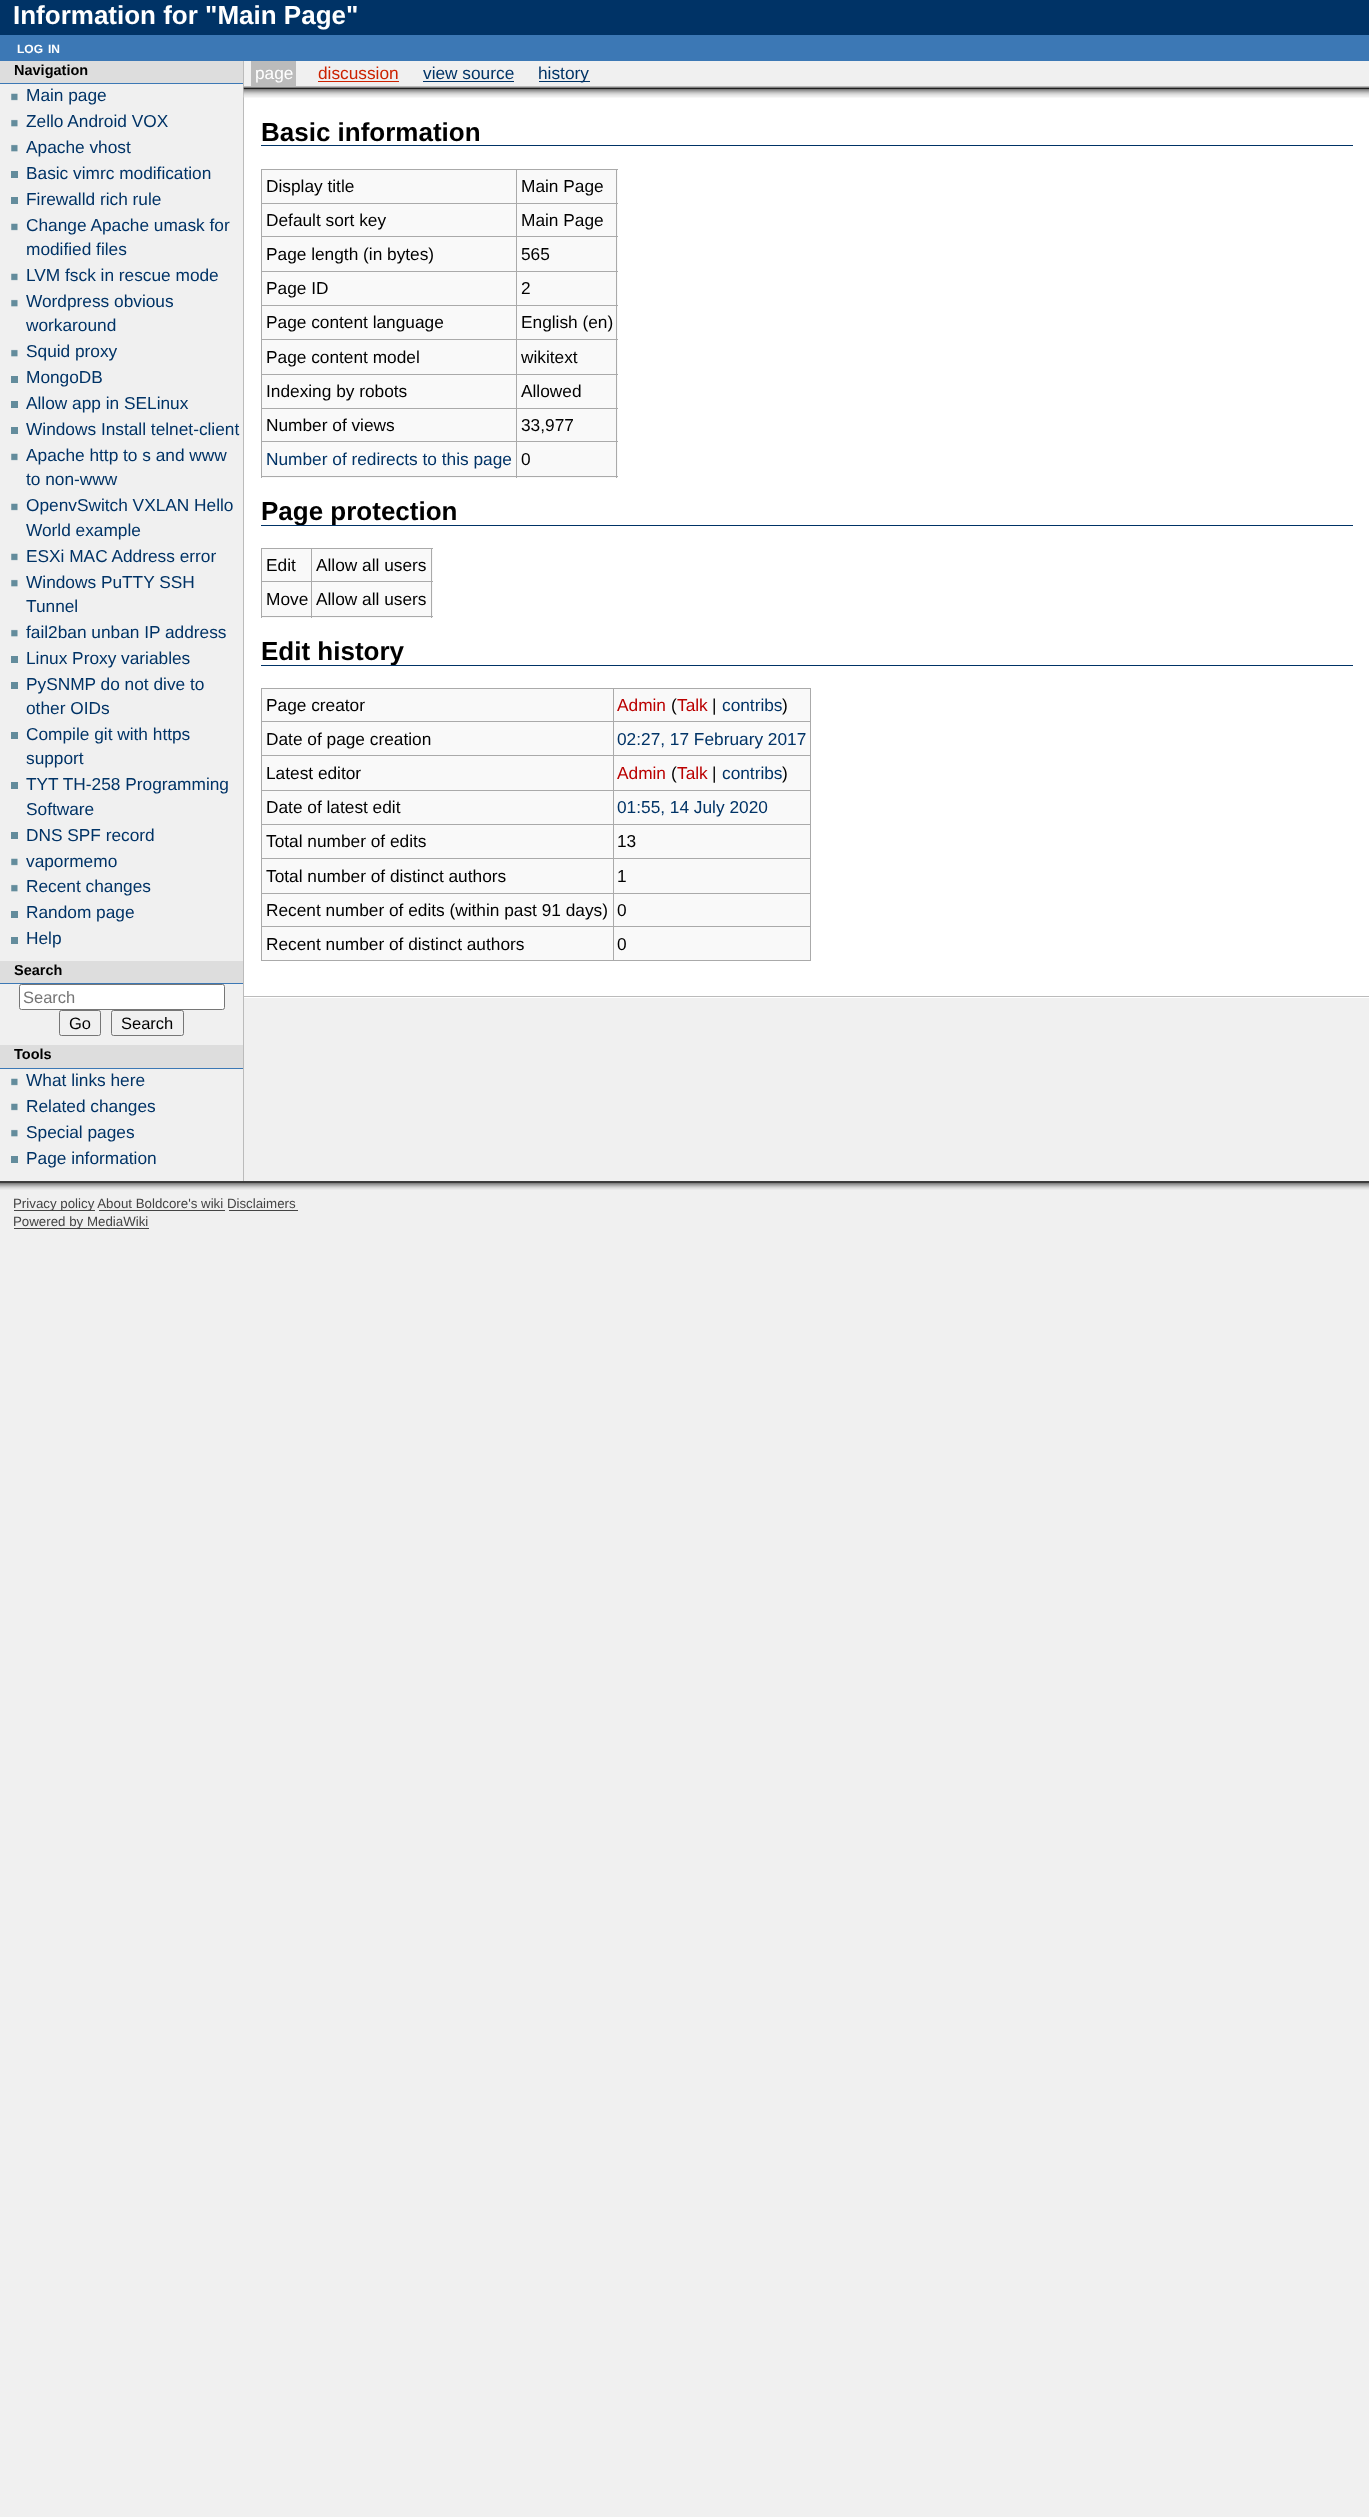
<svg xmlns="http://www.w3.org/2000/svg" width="1369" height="2517">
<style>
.a{font:bold 26px Liberation Sans;fill:#fff}
.b{font:bold 12px Liberation Sans;fill:#fff}
.c{font:bold 14.5px Liberation Sans;fill:#000}
.d{font:17.3px Liberation Sans;fill:#036}
.e{font:16.5px Liberation Sans;fill:#757575}
.f{font:16.5px Liberation Sans;fill:#000}
.g{font:17.3px Liberation Sans;fill:#fff}
.h{font:17.3px Liberation Sans;fill:#c20}
.i{font:bold 26px Liberation Sans;fill:#000}
.j{font:17.3px Liberation Sans;fill:#000}
.k{font:17.3px Liberation Sans;fill:#ba0000}
.l{font:13.3px Liberation Sans;fill:#444}
</style>
<defs>
<clipPath id="clip1"><path d="M261 499h1092v26H261z"/></clipPath>
<clipPath id="clip2"><path d="M261 639h1092v26H261z"/></clipPath>
</defs>
<rect width="100%" height="100%" fill="#f0f0f0"/>
<path fill="#036" d="M0 0h1369v35H0z"/>
<path fill="#3c78b5" d="M0 35h1369v26H0z"/>
<path fill="#bbb" d="M243 61h1v1120H243z"/>
<path fill="#ddd" d="M0 61h243v22H0z"/>
<path fill="#3c78b5" d="M0 83h243v1H0z"/>
<image href="1.png" x="11" y="93" width="7" height="8"/>
<image href="2.png" x="11" y="119" width="7" height="8"/>
<image href="2.png" x="11" y="144" width="7" height="8"/>
<path fill="#638c9c" d="M11 171h7v7H11z"/>
<path fill="#638c9c" d="M11 197h7v7H11z"/>
<image href="1.png" x="11" y="223" width="7" height="8"/>
<image href="1.png" x="11" y="273" width="7" height="8"/>
<image href="2.png" x="11" y="299" width="7" height="8"/>
<image href="2.png" x="11" y="349" width="7" height="8"/>
<path fill="#638c9c" d="M11 376h7v7H11z"/>
<path fill="#638c9c" d="M11 401h7v7H11z"/>
<path fill="#638c9c" d="M11 427h7v7H11z"/>
<image href="1.png" x="11" y="453" width="7" height="8"/>
<image href="1.png" x="11" y="503" width="7" height="8"/>
<image href="1.png" x="11" y="553" width="7" height="8"/>
<image href="2.png" x="11" y="579" width="7" height="8"/>
<image href="2.png" x="11" y="629" width="7" height="8"/>
<path fill="#638c9c" d="M11 656h7v7H11z"/>
<path fill="#638c9c" d="M11 682h7v7H11z"/>
<path fill="#638c9c" d="M11 732h7v7H11z"/>
<path fill="#638c9c" d="M11 782h7v7H11z"/>
<path fill="#638c9c" d="M11 832h7v7H11z"/>
<image href="1.png" x="11" y="858" width="7" height="8"/>
<image href="2.png" x="11" y="884" width="7" height="8"/>
<path fill="#638c9c" d="M11 911h7v7H11z"/>
<path fill="#638c9c" d="M11 937h7v7H11z"/>
<path fill="#ddd" d="M0 961h243v22H0z"/>
<path fill="#3c78b5" d="M0 983h243v1H0z"/>
<rect fill="#fff" stroke="#767676" x="19.5" y="984.5" width="205" height="25" rx="2"/>
<rect fill="none" stroke="#767676" x="59.5" y="1010.5" width="41" height="25" rx="2"/>
<rect fill="none" stroke="#767676" x="111.5" y="1010.5" width="72" height="25" rx="2"/>
<path fill="#ddd" d="M0 1045h243v23H0z"/>
<path fill="#3c78b5" d="M0 1068h243v1H0z"/>
<image href="1.png" x="11" y="1078" width="7" height="8"/>
<image href="1.png" x="11" y="1103" width="7" height="8"/>
<image href="2.png" x="11" y="1129" width="7" height="8"/>
<path fill="#638c9c" d="M11 1156h7v7H11z"/>
<path fill="#bbb" d="M251 61h45v25H251z"/>
<path fill="#c20" d="M318 81h81v1H318z"/>
<path fill="#036" d="M423 81h91v1H423z"/>
<path fill="#036" d="M539 81h51v1H539z"/>
<path fill="#fff" d="M244 87h1125v911H244z"/>
<path fill="#bbb" d="M243 86h1126v1H243z"/>
<path fill="#bbb" d="M243 996h1126v1H243z"/>
<image href="3.png" x="243" y="87" width="1126" height="11"/>
<path fill="#036" d="M261 145h1092v1H261z"/>
<path fill="#f9f9f9" d="M262 170h356v308H262z"/>
<path fill="#aaa" d="M261 169h357v1H261z"/>
<path fill="#aaa" d="M616 169h1v309H616z"/>
<path fill="#aaa" d="M261 476h357v1H261z"/>
<path fill="#aaa" d="M261 169h1v309H261z"/>
<path fill="#aaa" d="M516 203h102v1H516z"/>
<path fill="#aaa" d="M516 236h102v1H516z"/>
<path fill="#aaa" d="M516 271h102v1H516z"/>
<path fill="#aaa" d="M516 305h102v1H516z"/>
<path fill="#aaa" d="M516 339h102v1H516z"/>
<path fill="#aaa" d="M516 374h102v1H516z"/>
<path fill="#aaa" d="M516 408h102v1H516z"/>
<path fill="#aaa" d="M516 441h102v1H516z"/>
<path fill="#aaa" d="M516 441h1v37H516z"/>
<path fill="#aaa" d="M261 441h257v1H261z"/>
<path fill="#aaa" d="M516 408h1v35H516z"/>
<path fill="#aaa" d="M261 408h257v1H261z"/>
<path fill="#aaa" d="M516 374h1v35H516z"/>
<path fill="#aaa" d="M261 374h257v1H261z"/>
<path fill="#aaa" d="M516 339h1v36H516z"/>
<path fill="#aaa" d="M261 339h257v1H261z"/>
<path fill="#aaa" d="M516 305h1v35H516z"/>
<path fill="#aaa" d="M261 305h257v1H261z"/>
<path fill="#aaa" d="M516 271h1v35H516z"/>
<path fill="#aaa" d="M261 271h257v1H261z"/>
<path fill="#aaa" d="M516 236h1v37H516z"/>
<path fill="#aaa" d="M261 236h257v1H261z"/>
<path fill="#aaa" d="M516 203h1v35H516z"/>
<path fill="#aaa" d="M261 203h257v1H261z"/>
<path fill="#aaa" d="M516 169h1v35H516z"/>
<path fill="#036" d="M261 525h1092v1H261z"/>
<path fill="#f9f9f9" d="M262 549h171v69H262z"/>
<path fill="#aaa" d="M261 548h172v1H261z"/>
<path fill="#aaa" d="M431 548h1v70H431z"/>
<path fill="#aaa" d="M261 616h172v1H261z"/>
<path fill="#aaa" d="M261 548h1v70H261z"/>
<path fill="#aaa" d="M311 581h122v1H311z"/>
<path fill="#aaa" d="M311 581h1v37H311z"/>
<path fill="#aaa" d="M261 581h52v1H261z"/>
<path fill="#aaa" d="M311 548h1v35H311z"/>
<path fill="#036" d="M261 665h1092v1H261z"/>
<path fill="#f9f9f9" d="M262 689h548v271H262z"/>
<path fill="#aaa" d="M261 688h550v1H261z"/>
<path fill="#aaa" d="M810 688h1v273H810z"/>
<path fill="#aaa" d="M261 960h550v1H261z"/>
<path fill="#aaa" d="M261 688h1v273H261z"/>
<path fill="#aaa" d="M613 721h198v1H613z"/>
<path fill="#aaa" d="M613 755h198v1H613z"/>
<path fill="#aaa" d="M613 790h198v1H613z"/>
<path fill="#aaa" d="M613 824h198v1H613z"/>
<path fill="#aaa" d="M613 858h198v1H613z"/>
<path fill="#aaa" d="M613 893h198v1H613z"/>
<path fill="#aaa" d="M613 926h198v1H613z"/>
<path fill="#aaa" d="M613 926h1v35H613z"/>
<path fill="#aaa" d="M261 926h353v1H261z"/>
<path fill="#aaa" d="M613 893h1v35H613z"/>
<path fill="#aaa" d="M261 893h353v1H261z"/>
<path fill="#aaa" d="M613 858h1v36H613z"/>
<path fill="#aaa" d="M261 858h353v1H261z"/>
<path fill="#aaa" d="M613 824h1v35H613z"/>
<path fill="#aaa" d="M261 824h353v1H261z"/>
<path fill="#aaa" d="M613 790h1v35H613z"/>
<path fill="#aaa" d="M261 790h353v1H261z"/>
<path fill="#aaa" d="M613 755h1v36H613z"/>
<path fill="#aaa" d="M261 755h353v1H261z"/>
<path fill="#aaa" d="M613 721h1v35H613z"/>
<path fill="#aaa" d="M261 721h353v1H261z"/>
<path fill="#aaa" d="M613 688h1v35H613z"/>
<image href="4.png" x="0" y="1181" width="1369" height="9"/>
<path fill="#444" d="M14 1210h81v1H14z"/>
<path fill="#444" d="M99 1210h126v1H99z"/>
<path fill="#444" d="M229 1210h69v1H229z"/>
<path fill="#444" d="M14 1228h135v1H14z"/>
<text class="a" x="13" y="24">Information for "Main Page"</text>
<text class="b" x="17" y="53">LOG</text>
<text class="b" x="48" y="53">IN</text>
<text class="c" x="14" y="75">Navigation</text>
<text class="d" x="26" y="101">Main page</text>
<text class="d" x="26" y="127">Zello Android VOX</text>
<text class="d" x="26" y="153">Apache vhost</text>
<text class="d" x="26" y="179">Basic vimrc modification</text>
<text class="d" x="26" y="205">Firewalld rich rule</text>
<text class="d" x="26" y="231">Change Apache umask for</text>
<text class="d" x="26" y="255">modified files</text>
<text class="d" x="26" y="281">LVM fsck in rescue mode</text>
<text class="d" x="26" y="307">Wordpress obvious</text>
<text class="d" x="26" y="331">workaround</text>
<text class="d" x="26" y="357">Squid proxy</text>
<text class="d" x="26" y="383">MongoDB</text>
<text class="d" x="26" y="409">Allow app in SELinux</text>
<text class="d" x="26" y="435">Windows Install telnet-client</text>
<text class="d" x="26" y="461">Apache http to s and www</text>
<text class="d" x="26" y="485">to non-www</text>
<text class="d" x="26" y="511">OpenvSwitch VXLAN Hello</text>
<text class="d" x="26" y="536">World example</text>
<text class="d" x="26" y="562">ESXi MAC Address error</text>
<text class="d" x="26" y="588">Windows PuTTY SSH</text>
<text class="d" x="26" y="612">Tunnel</text>
<text class="d" x="26" y="638">fail2ban unban IP address</text>
<text class="d" x="26" y="664">Linux Proxy variables</text>
<text class="d" x="26" y="690">PySNMP do not dive to</text>
<text class="d" x="26" y="714">other OIDs</text>
<text class="d" x="26" y="740">Compile git with https</text>
<text class="d" x="26" y="764">support</text>
<text class="d" x="26" y="790">TYT TH-258 Programming</text>
<text class="d" x="26" y="815">Software</text>
<text class="d" x="26" y="841">DNS SPF record</text>
<text class="d" x="26" y="867">vapormemo</text>
<text class="d" x="26" y="892">Recent changes</text>
<text class="d" x="26" y="918">Random page</text>
<text class="d" x="26" y="944">Help</text>
<text class="c" x="14" y="975">Search</text>
<text class="e" x="23" y="1003">Search</text>
<text class="f" x="69" y="1029">Go</text>
<text class="f" x="121" y="1029">Search</text>
<text class="c" x="14" y="1059">Tools</text>
<text class="d" x="26" y="1086">What links here</text>
<text class="d" x="26" y="1112">Related changes</text>
<text class="d" x="26" y="1138">Special pages</text>
<text class="d" x="26" y="1164">Page information</text>
<text class="g" x="255" y="79">page</text>
<text class="h" x="318" y="79">discussion</text>
<text class="d" x="423" y="79">view source</text>
<text class="d" x="538" y="79">history</text>
<text class="i" x="261" y="141">Basic information</text>
<text class="j" x="266" y="192">Display title</text>
<text class="j" x="521" y="192">Main Page</text>
<text class="j" x="266" y="226">Default sort key</text>
<text class="j" x="521" y="226">Main Page</text>
<text class="j" x="266" y="260">Page length (in bytes)</text>
<text class="j" x="521" y="260">565</text>
<text class="j" x="266" y="294">Page ID</text>
<text class="j" x="521" y="294">2</text>
<text class="j" x="266" y="328">Page content language</text>
<text class="j" x="521" y="328">English (en)</text>
<text class="j" x="266" y="363">Page content model</text>
<text class="j" x="521" y="363">wikitext</text>
<text class="j" x="266" y="397">Indexing by robots</text>
<text class="j" x="521" y="397">Allowed</text>
<text class="j" x="266" y="431">Number of views</text>
<text class="j" x="521" y="431">33,977</text>
<text class="d" x="266" y="465">Number of redirects to this page</text>
<text class="j" x="521" y="465">0</text>
<g clip-path="url(#clip1)">
<text class="i" x="261" y="520">Page protection</text>
</g>
<text class="j" x="266" y="571">Edit</text>
<text class="j" x="316" y="571">Allow all users</text>
<text class="j" x="266" y="605">Move</text>
<text class="j" x="316" y="605">Allow all users</text>
<g clip-path="url(#clip2)">
<text class="i" x="261" y="660">Edit history</text>
</g>
<text class="j" x="266" y="711">Page creator</text>
<text class="k" x="617" y="711">Admin</text>
<text class="j" x="671" y="711">(</text>
<text class="k" x="677" y="711">Talk</text>
<text class="j" x="712" y="711">|</text>
<text class="d" x="722" y="711">contribs</text>
<text class="j" x="782" y="711">)</text>
<text class="j" x="266" y="745">Date of page creation</text>
<text class="d" x="617" y="745">02:27, 17 February 2017</text>
<text class="j" x="266" y="779">Latest editor</text>
<text class="k" x="617" y="779">Admin</text>
<text class="j" x="671" y="779">(</text>
<text class="k" x="677" y="779">Talk</text>
<text class="j" x="712" y="779">|</text>
<text class="d" x="722" y="779">contribs</text>
<text class="j" x="782" y="779">)</text>
<text class="j" x="266" y="813">Date of latest edit</text>
<text class="d" x="617" y="813">01:55, 14 July 2020</text>
<text class="j" x="266" y="847">Total number of edits</text>
<text class="j" x="617" y="847">13</text>
<text class="j" x="266" y="882">Total number of distinct authors</text>
<text class="j" x="617" y="882">1</text>
<text class="j" x="266" y="916">Recent number of edits (within past 91 days)</text>
<text class="j" x="617" y="916">0</text>
<text class="j" x="266" y="950">Recent number of distinct authors</text>
<text class="j" x="617" y="950">0</text>
<text class="l" x="13" y="1208">Privacy policy About Boldcore's wiki Disclaimers</text>
<text class="l" x="13" y="1226">Powered by MediaWiki</text>
</svg>
